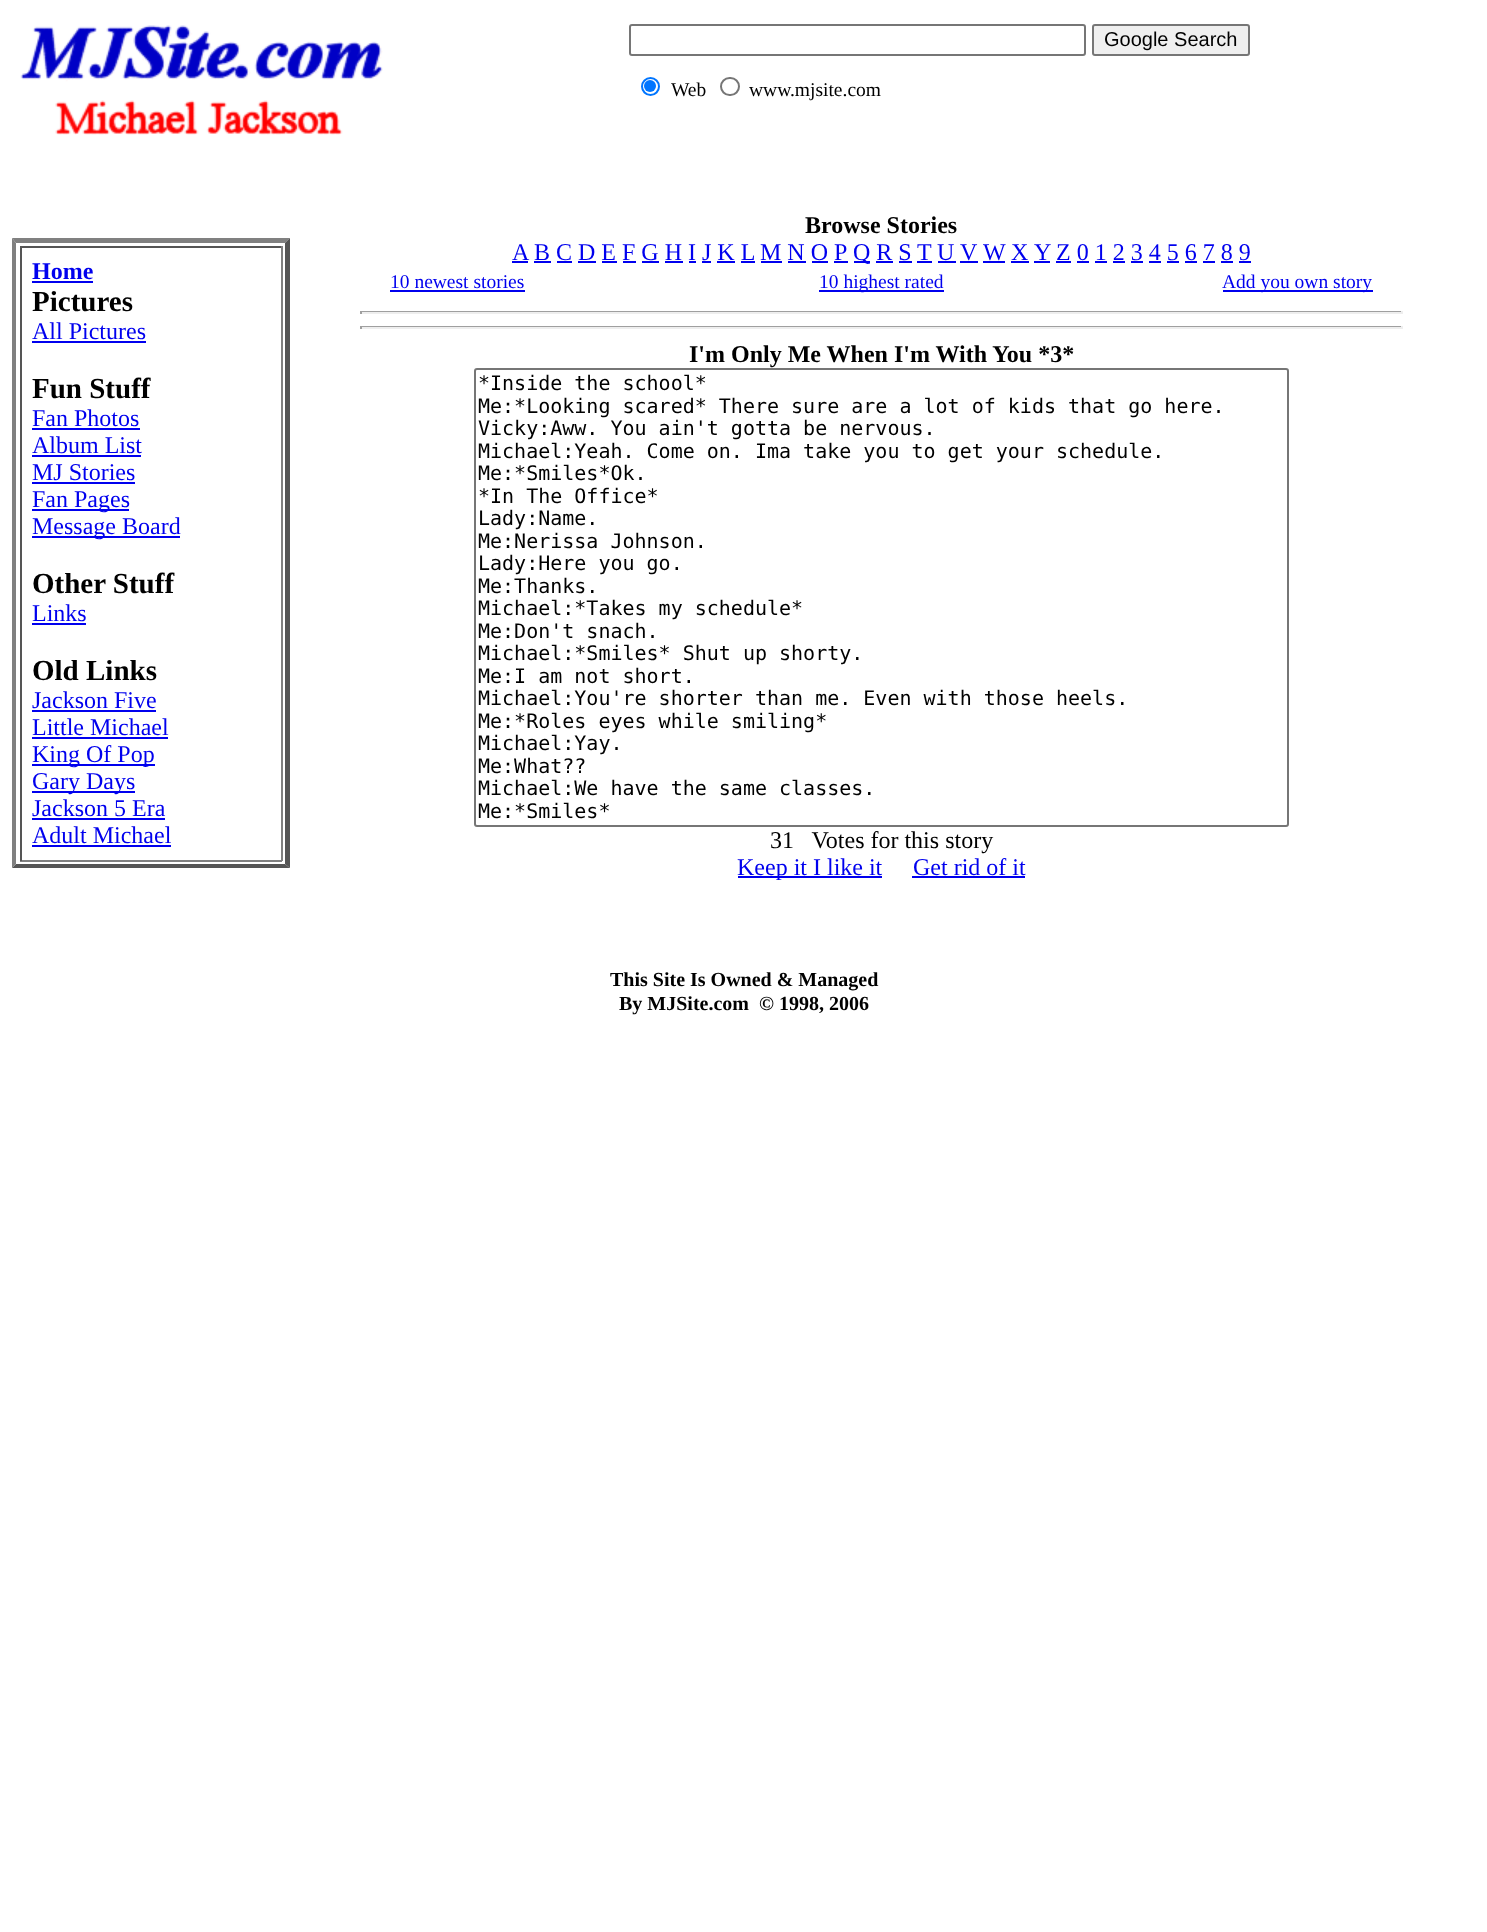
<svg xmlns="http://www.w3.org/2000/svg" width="1487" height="1932">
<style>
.a{font:20px Liberation Sans;fill:#000}
.b{font:19.5px Liberation Serif;fill:#000}
.c{font:bold 24px Liberation Serif;fill:#00e}
.d{font:bold 29px Liberation Serif;fill:#000}
.e{font:24px Liberation Serif;fill:#00e}
.f{font:bold 24px Liberation Serif;fill:#000}
.g{font:19.5px Liberation Serif;fill:#00e}
.h{font:20px DejaVu Sans Mono;fill:#000}
.i{font:24px Liberation Serif;fill:#000}
.j{font:bold 20px Liberation Serif;fill:#000}
</style>
<rect width="100%" height="100%" fill="#fff"/>
<image href="1.png" x="20" y="25" width="363" height="110"/>
<rect fill="none" stroke="#767676" stroke-width="2" x="630" y="25" width="455" height="30" rx="2"/>
<rect fill="#efefef" stroke="#767676" stroke-width="2" x="1093" y="25" width="156" height="30" rx="2"/>
<circle fill="none" stroke="#0075ff" stroke-width="2" cx="650.5" cy="86.5" r="8.5"/>
<circle fill="#0075ff" cx="650" cy="86" r="6"/>
<rect fill="none" stroke="#767676" stroke-width="2" x="721" y="78" width="18" height="17" rx="8.5"/>
<path fill="#808080" d="M12 238h278l-5 5h-269z"/>
<path fill="#555" d="M290 238v630l-5-4v-621z"/>
<path fill="#555" d="M290 868h-278l4-4h269z"/>
<path fill="#808080" d="M12 868v-630l4 5v621z"/>
<path fill="#555" d="M20 246h262v2H20z"/>
<path fill="#808080" d="M281 246h2v615H281z"/>
<path fill="#808080" d="M20 860h262v2H20z"/>
<path fill="#555" d="M20 246h2v615H20z"/>
<path fill="#00e" d="M32 281h61v2H32z"/>
<path fill="#00e" d="M32 341h114v2H32z"/>
<path fill="#00e" d="M32 428h108v2H32z"/>
<path fill="#00e" d="M32 455h109v2H32z"/>
<path fill="#00e" d="M32 482h103v2H32z"/>
<path fill="#00e" d="M32 509h97v2H32z"/>
<path fill="#00e" d="M32 536h148v2H32z"/>
<path fill="#00e" d="M32 623h54v2H32z"/>
<path fill="#00e" d="M32 710h124v2H32z"/>
<path fill="#00e" d="M32 737h136v2H32z"/>
<path fill="#00e" d="M32 764h123v2H32z"/>
<path fill="#00e" d="M32 791h103v2H32z"/>
<path fill="#00e" d="M32 818h133v2H32z"/>
<path fill="#00e" d="M32 845h139v2H32z"/>
<path fill="#00e" d="M512 261h16v2H512z"/>
<path fill="#00e" d="M534 261h17v2H534z"/>
<path fill="#00e" d="M761 261h21v2H761z"/>
<path fill="#00e" d="M854 261h16v2H854z"/>
<path fill="#00e" d="M917 261h15v2H917z"/>
<path fill="#00e" d="M938 261h18v2H938z"/>
<path fill="#00e" d="M960 261h18v2H960z"/>
<path fill="#00e" d="M983 261h22v2H983z"/>
<path fill="#00e" d="M1011 261h18v2H1011z"/>
<path fill="#00e" d="M1034 261h16v2H1034z"/>
<path fill="#00e" d="M1056 261h15v2H1056z"/>
<path fill="#00e" d="M557 261h15v2H557z"/>
<path fill="#00e" d="M578 261h18v2H578z"/>
<path fill="#00e" d="M602 261h15v2H602z"/>
<path fill="#00e" d="M623 261h13v2H623z"/>
<path fill="#00e" d="M642 261h17v2H642z"/>
<path fill="#00e" d="M665 261h18v2H665z"/>
<path fill="#00e" d="M689 261h7v2H689z"/>
<path fill="#00e" d="M702 261h9v2H702z"/>
<path fill="#00e" d="M717 261h18v2H717z"/>
<path fill="#00e" d="M741 261h14v2H741z"/>
<path fill="#00e" d="M788 261h18v2H788z"/>
<path fill="#00e" d="M812 261h16v2H812z"/>
<path fill="#00e" d="M834 261h14v2H834z"/>
<path fill="#00e" d="M876 261h17v2H876z"/>
<path fill="#00e" d="M899 261h13v2H899z"/>
<path fill="#00e" d="M1077 261h12v2H1077z"/>
<path fill="#00e" d="M1095 261h12v2H1095z"/>
<path fill="#00e" d="M1113 261h12v2H1113z"/>
<path fill="#00e" d="M1131 261h12v2H1131z"/>
<path fill="#00e" d="M1149 261h12v2H1149z"/>
<path fill="#00e" d="M1167 261h12v2H1167z"/>
<path fill="#00e" d="M1185 261h12v2H1185z"/>
<path fill="#00e" d="M1203 261h12v2H1203z"/>
<path fill="#00e" d="M1221 261h12v2H1221z"/>
<path fill="#00e" d="M1239 261h12v2H1239z"/>
<path fill="#00e" d="M390 290h135v2H390z"/>
<path fill="#00e" d="M819 290h125v2H819z"/>
<path fill="#00e" d="M1223 290h150v2H1223z"/>
<path fill="#9f9f9f" d="M360 311h1043v1H360z"/>
<path fill="#eee" d="M1401 311h2v3H1401z"/>
<path fill="#eee" d="M360 312h1043v2H360z"/>
<path fill="#9f9f9f" d="M360 311h2v3H360z"/>
<path fill="#9f9f9f" d="M360 326h1043v1H360z"/>
<path fill="#eee" d="M1401 326h2v3H1401z"/>
<path fill="#eee" d="M360 327h1043v2H360z"/>
<path fill="#9f9f9f" d="M360 326h2v3H360z"/>
<rect fill="none" stroke="#767676" stroke-width="2" x="475" y="369" width="813" height="457" rx="2"/>
<path fill="#00e" d="M738 876h144v2H738z"/>
<path fill="#00e" d="M912 876h113v2H912z"/>
<text class="a" x="1104" y="46">Google Search</text>
<text class="b" x="671" y="96">Web</text>
<text class="b" x="749" y="96">www.mjsite.com</text>
<text class="c" x="32" y="279">Home</text>
<text class="d" x="32" y="311">Pictures</text>
<text class="e" x="32" y="339">All Pictures</text>
<text class="d" x="32" y="398">Fun Stuff</text>
<text class="e" x="32" y="426">Fan Photos</text>
<text class="e" x="32" y="453">Album List</text>
<text class="e" x="32" y="480">MJ Stories</text>
<text class="e" x="32" y="507">Fan Pages</text>
<text class="e" x="32" y="534">Message Board</text>
<text class="d" x="32" y="593">Other Stuff</text>
<text class="e" x="32" y="621">Links</text>
<text class="d" x="32" y="680">Old Links</text>
<text class="e" x="32" y="708">Jackson Five</text>
<text class="e" x="32" y="735">Little Michael</text>
<text class="e" x="32" y="762">King Of Pop</text>
<text class="e" x="32" y="789">Gary Days</text>
<text class="e" x="32" y="816">Jackson 5 Era</text>
<text class="e" x="32" y="843">Adult Michael</text>
<text class="f" x="805" y="233">Browse Stories</text>
<text class="e" x="512" y="260">A</text>
<text class="e" x="534" y="260">B C D E F G H I J K L</text>
<text class="e" x="760" y="260">M N O P</text>
<text class="e" x="853" y="260">Q R S</text>
<text class="e" x="917" y="260">T</text>
<text class="e" x="937" y="260">U</text>
<text class="e" x="960" y="260">V</text>
<text class="e" x="983" y="260">W</text>
<text class="e" x="1011" y="260">X</text>
<text class="e" x="1034" y="260">Y</text>
<text class="e" x="1056" y="260">Z 0 1 2 3 4 5 6 7 8 9</text>
<text class="g" x="390" y="288">10 newest stories</text>
<text class="g" x="819" y="288">10 highest rated</text>
<text class="g" x="1222" y="288">Add you own story</text>
<text class="f" x="689" y="362">I'm Only Me When I'm With You *3*</text>
<text class="h" x="478" y="390">*Inside the school*</text>
<text class="h" x="478" y="413">Me:*Looking scared* There sure are a lot of kids that go here.</text>
<text class="h" x="478" y="435">Vicky:Aww. You ain't gotta be nervous.</text>
<text class="h" x="478" y="458">Michael:Yeah. Come on. Ima take you to get your schedule.</text>
<text class="h" x="478" y="480">Me:*Smiles*Ok.</text>
<text class="h" x="478" y="503">*In The Office*</text>
<text class="h" x="478" y="525">Lady:Name.</text>
<text class="h" x="478" y="548">Me:Nerissa Johnson.</text>
<text class="h" x="478" y="570">Lady:Here you go.</text>
<text class="h" x="478" y="593">Me:Thanks.</text>
<text class="h" x="478" y="615">Michael:*Takes my schedule*</text>
<text class="h" x="478" y="638">Me:Don't snach.</text>
<text class="h" x="478" y="660">Michael:*Smiles* Shut up shorty.</text>
<text class="h" x="478" y="683">Me:I am not short.</text>
<text class="h" x="478" y="705">Michael:You're shorter than me. Even with those heels.</text>
<text class="h" x="478" y="728">Me:*Roles eyes while smiling*</text>
<text class="h" x="478" y="750">Michael:Yay.</text>
<text class="h" x="478" y="773">Me:What??</text>
<text class="h" x="478" y="795">Michael:We have the same classes.</text>
<text class="h" x="478" y="818">Me:*Smiles*</text>
<text class="i" xml:space="preserve" x="770" y="848">31   Votes for this story</text>
<text class="e" x="737" y="875">Keep it I like it</text>
<text class="e" x="913" y="875">Get rid of it</text>
<text class="j" x="610" y="986">This Site Is Owned &amp; Managed</text>
<text class="j" xml:space="preserve" x="619" y="1010">By MJSite.com  © 1998, 2006</text>
</svg>
